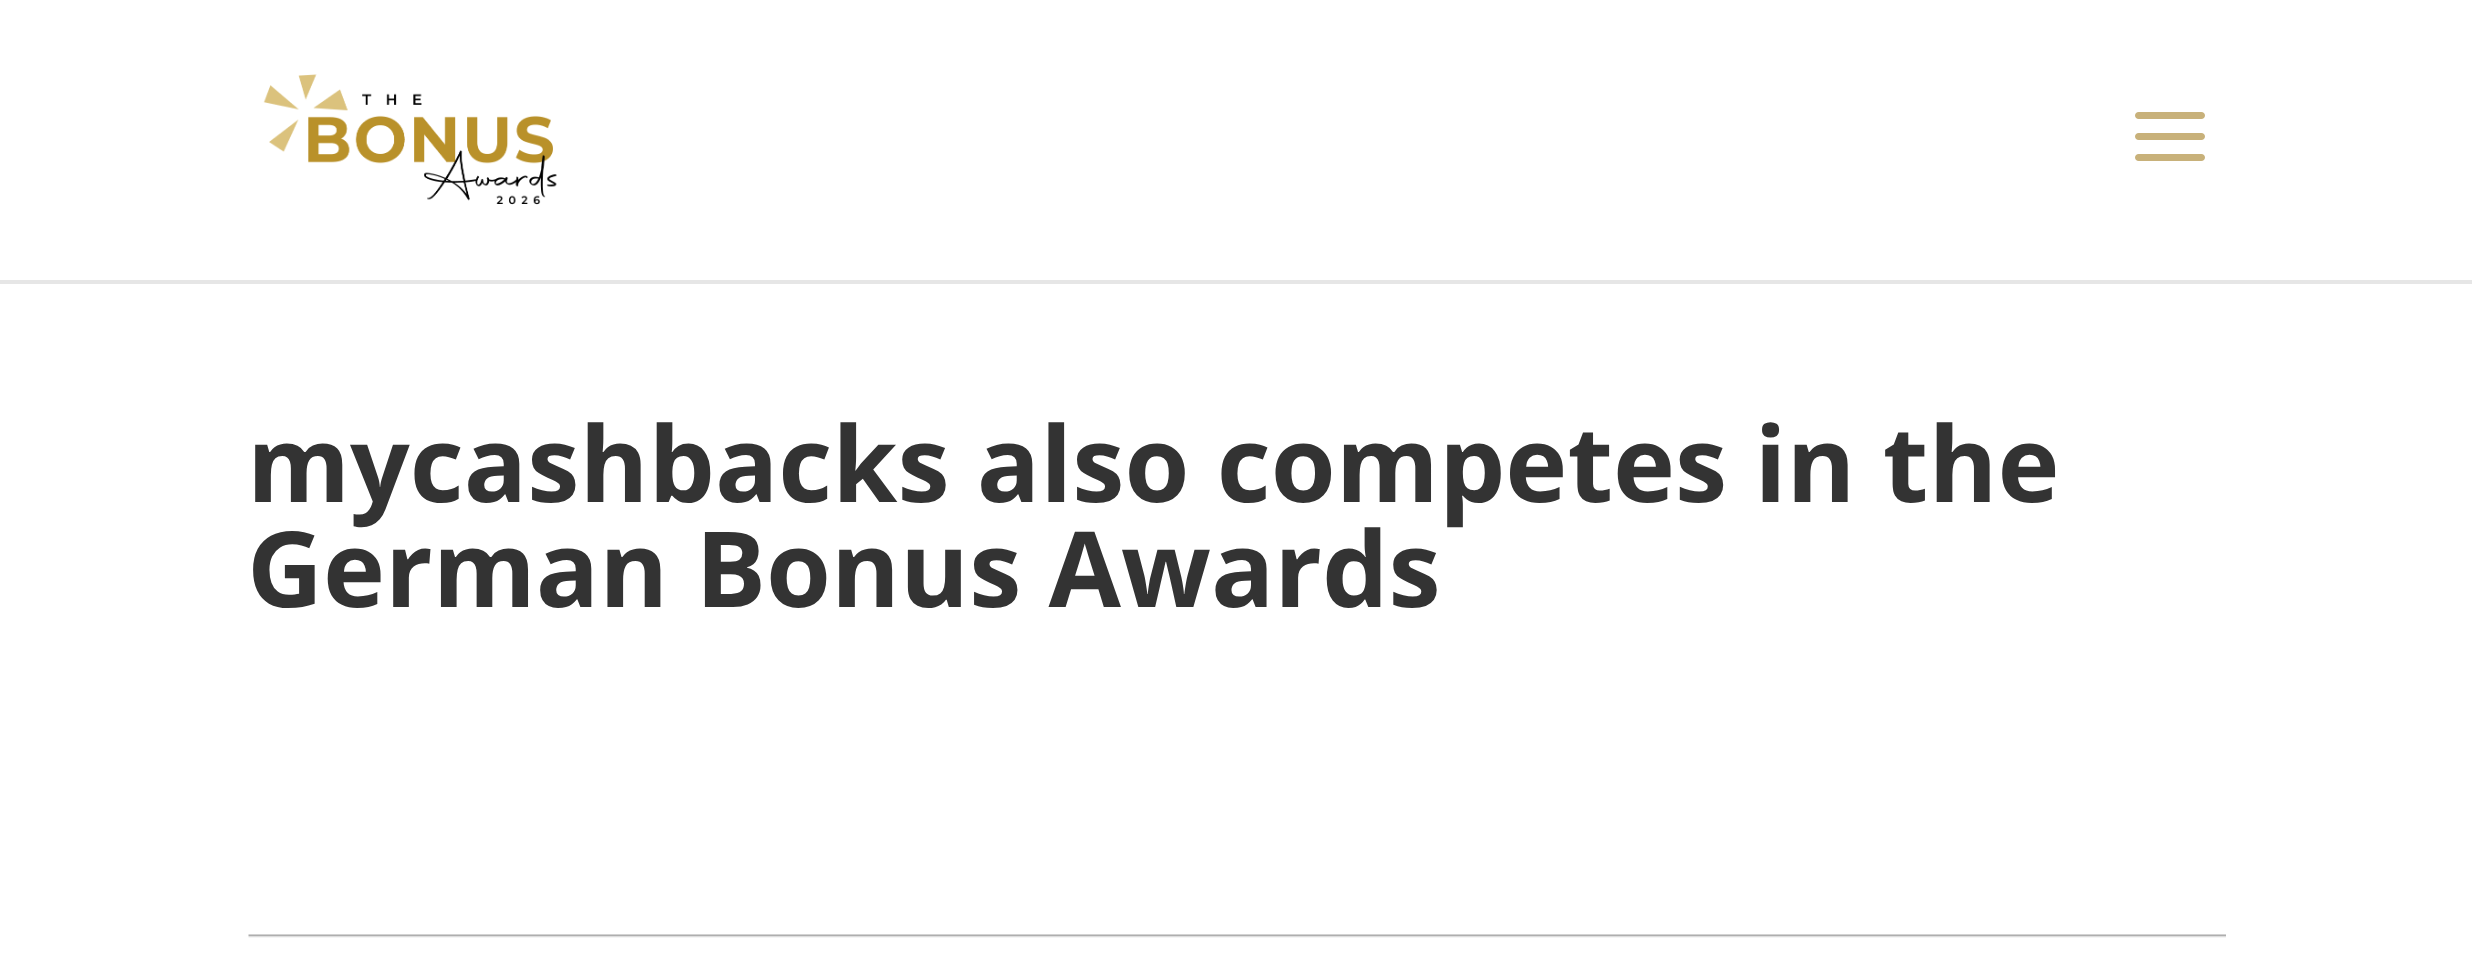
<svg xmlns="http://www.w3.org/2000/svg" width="2472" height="959">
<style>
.a{font:bold 105px Open Sans;fill:#333}
</style>
<rect width="100%" height="100%" fill="#fff"/>
<path fill="#e6e6e6" d="M0 280v4h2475v-280h-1v276z"/>
<image href="1.png" x="263" y="74" width="294" height="131"/>
<image href="2.png" x="2135" y="112" width="70" height="49"/>
<image href="3.png" x="248" y="934" width="1978" height="4"/>
<text class="a" x="247" y="502">mycashbacks also competes in the</text>
<text class="a" x="247" y="607">German Bonus Awards</text>
</svg>
